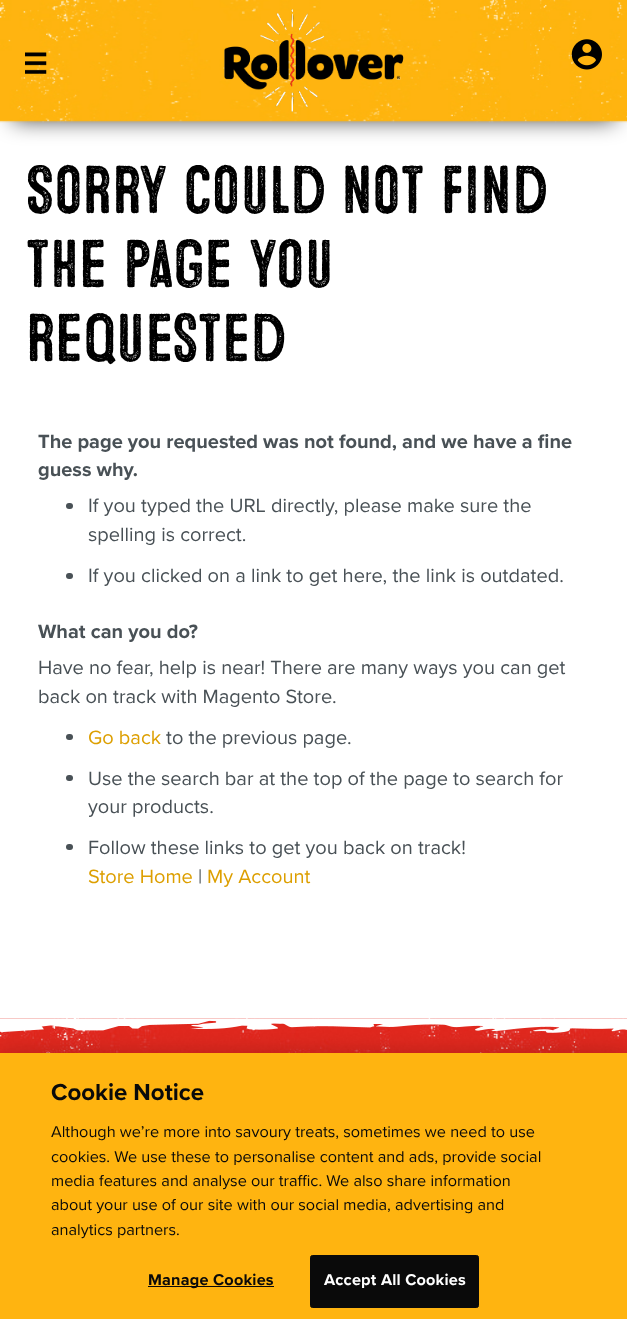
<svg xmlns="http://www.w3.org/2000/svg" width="627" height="1319">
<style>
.a{font:67.5px 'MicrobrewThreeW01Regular';letter-spacing:-1.35px;fill:#000}
.b{font:bold 20px Proxima Nova;fill:#495156}
.c{font:20px Proxima Nova;fill:#495156}
.d{font:20px Proxima Nova;fill:#dd9f00}
.e{font:bold 24px Proxima Nova;fill:#0a0a0a}
.f{font:16.25px Proxima Nova;fill:#0a0a0a}
.g{font:bold 16.25px Proxima Nova;letter-spacing:0.2px;fill:#0a0a0a}
.h{font:bold 16.25px Proxima Nova;letter-spacing:0.2px;fill:#fff}
</style>
<rect width="100%" height="100%" fill="#fff"/>
<path fill="#000000bf" filter="blur(11px)" d="M13 24h602v96H13z"/>
<image href="1.png" x="0" y="0" width="627" height="123"/>
<image href="2.png" x="25" y="52" width="22" height="22"/>
<image href="3.png" x="224" y="9" width="180" height="103"/>
<image href="4.png" x="571" y="39" width="31" height="31"/>
<rect fill="#495156" x="66" y="503" width="7" height="6" rx="3"/>
<rect fill="#495156" x="66" y="573" width="7" height="6" rx="3"/>
<rect fill="#495156" x="66" y="734" width="7" height="6" rx="3"/>
<rect fill="#495156" x="66" y="775" width="7" height="6" rx="3"/>
<rect fill="#495156" x="66" y="844" width="7" height="6" rx="3"/>
<image href="5.png" x="0" y="1018" width="627" height="35"/>
<image href="6.png" x="0" y="1019" width="627" height="14"/>
<path fill="#00000033" filter="blur(11px)" d="M0 1053h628v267H0z"/>
<path fill="#ffb410" d="M0 1053h627v266H0z"/>
<path fill="#0a0a0a" d="M148 1286h126v1H148z"/>
<rect fill="#0a0a0a" stroke="#0a0a0a" x="310.5" y="1255.5" width="168" height="52" rx="2"/>
<text class="a" x="25" y="213">Sorry could not find</text>
<text class="a" x="25" y="287">the page you</text>
<text class="a" x="25" y="361">requested</text>
<text class="b" x="38" y="448">The page you requested was not found, and we have a fine</text>
<text class="b" x="38" y="476">guess why.</text>
<text class="c" x="88" y="512">If you typed the URL directly, please make sure the</text>
<text class="c" x="88" y="541">spelling is correct.</text>
<text class="c" x="88" y="582">If you clicked on a link to get here, the link is outdated.</text>
<text class="b" x="38" y="638">What can you do?</text>
<text class="c" x="38" y="674">Have no fear, help is near! There are many ways you can get</text>
<text class="c" x="38" y="703">back on track with Magento Store.</text>
<text class="d" x="88" y="744">Go back</text>
<text class="c" x="166" y="744">to the previous page.</text>
<text class="c" x="88" y="785">Use the search bar at the top of the page to search for</text>
<text class="c" x="88" y="813">your products.</text>
<text class="c" x="88" y="854">Follow these links to get you back on track!</text>
<text class="d" x="88" y="883">Store Home</text>
<text class="c" x="198" y="883">|</text>
<text class="d" x="207" y="883">My Account</text>
<text class="e" x="51" y="1100">Cookie Notice</text>
<text class="f" x="51" y="1137">Although we’re more into savoury treats, sometimes we need to use</text>
<text class="f" x="51" y="1162">cookies. We use these to personalise content and ads, provide social</text>
<text class="f" x="51" y="1186">media features and analyse our traffic. We also share information</text>
<text class="f" x="51" y="1210">about your use of our site with our social media, advertising and</text>
<text class="f" x="51" y="1235">analytics partners.</text>
<text class="g" x="148" y="1285">Manage Cookies</text>
<text class="h" x="324" y="1285">Accept All Cookies</text>
</svg>
